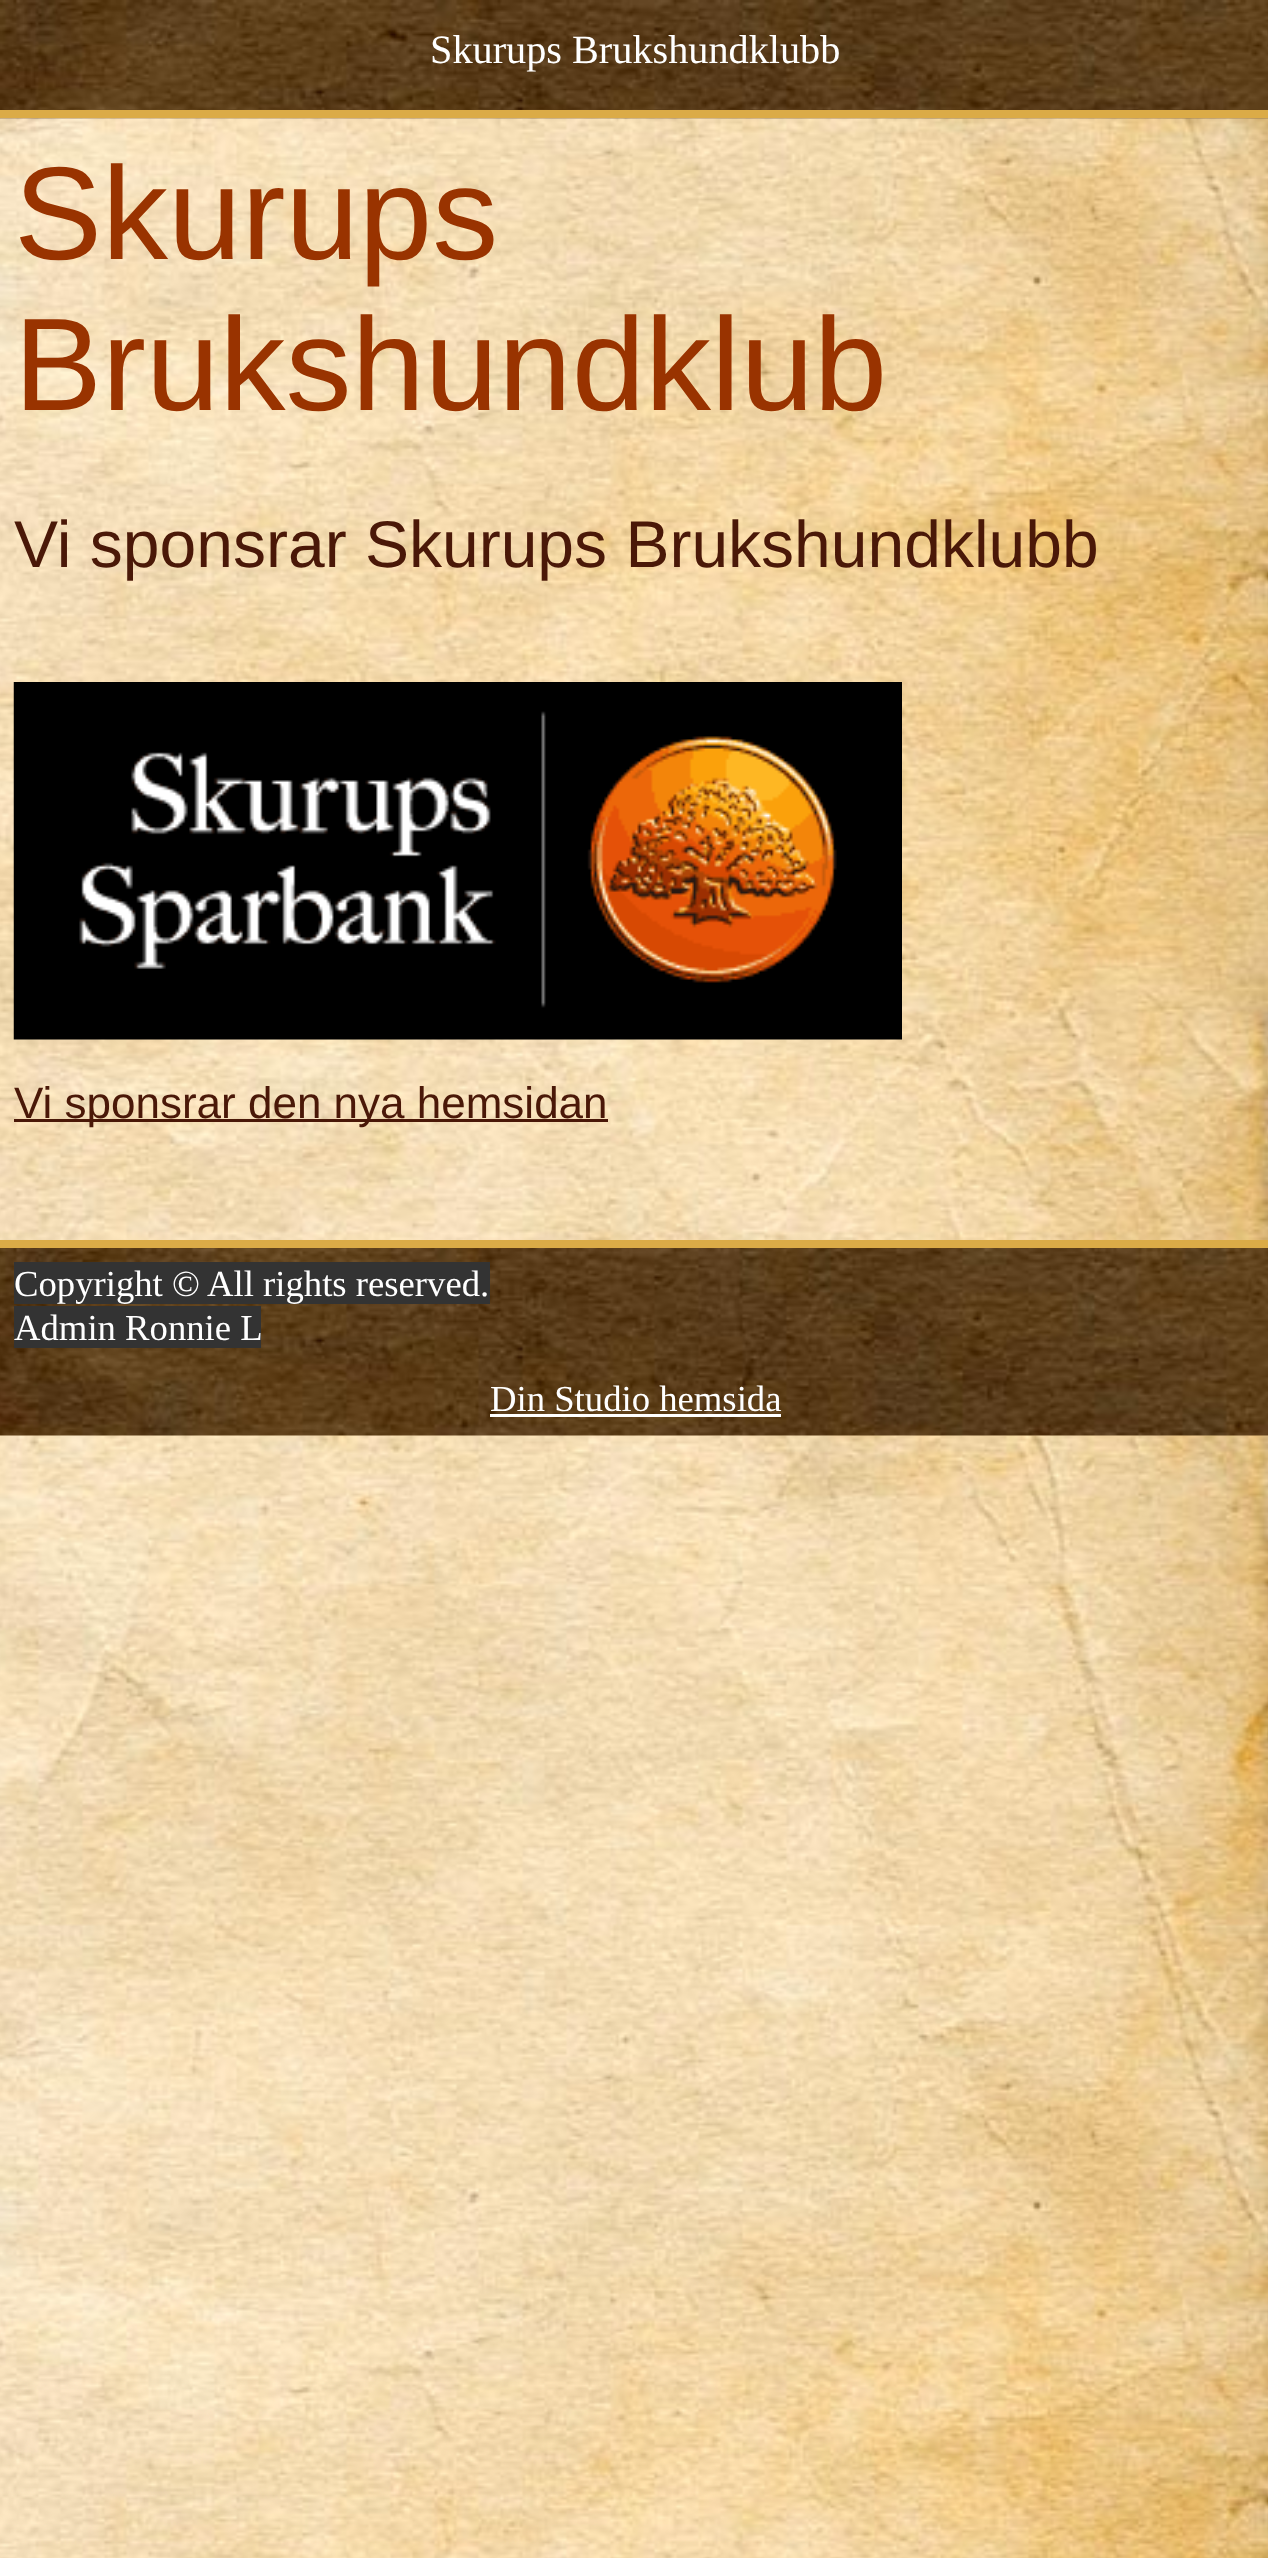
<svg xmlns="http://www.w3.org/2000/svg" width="1268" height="2558">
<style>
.a{font:40.25px Liberation Serif;fill:#fff}
.b{font:132px Liberation Sans;fill:#930}
.c{font:66px Liberation Sans;fill:#4a1808}
.d{font:44px Liberation Sans;fill:#4a1808}
.e{font:36.7px Liberation Serif;fill:#fff}
</style>
<rect width="100%" height="100%" fill="#fff"/>
<image href="1.png" x="0" y="118" width="1268" height="2440"/>
<image href="2.png" x="0" y="0" width="1268" height="119"/>
<path fill="#dbab47" d="M0 110h1268v8H0z"/>
<image href="3.png" x="13" y="682" width="889" height="358"/>
<path fill="#4a1808" d="M14 1119h594v3H14z"/>
<image href="4.png" x="0" y="1248" width="1268" height="188"/>
<path fill="#dbab47" d="M0 1240h1268v8H0z"/>
<path fill="#333" d="M14 1262h476v42H14z"/>
<path fill="#333" d="M14 1306h247v42H14z"/>
<path fill="#fff" d="M490 1414h291v3H490z"/>
<text class="a" x="430" y="63">Skurups Brukshundklubb</text>
<text class="b" x="14" y="259">Skurups</text>
<text class="b" x="14" y="410">Brukshundklub</text>
<text class="c" x="14" y="567">Vi sponsrar Skurups Brukshundklubb</text>
<text class="d" x="14" y="1118">Vi sponsrar den nya hemsidan</text>
<text class="e" x="14" y="1296">Copyright © All rights reserved.</text>
<text class="e" x="14" y="1340">Admin Ronnie L</text>
<text class="e" x="490" y="1411">Din Studio hemsida</text>
</svg>
